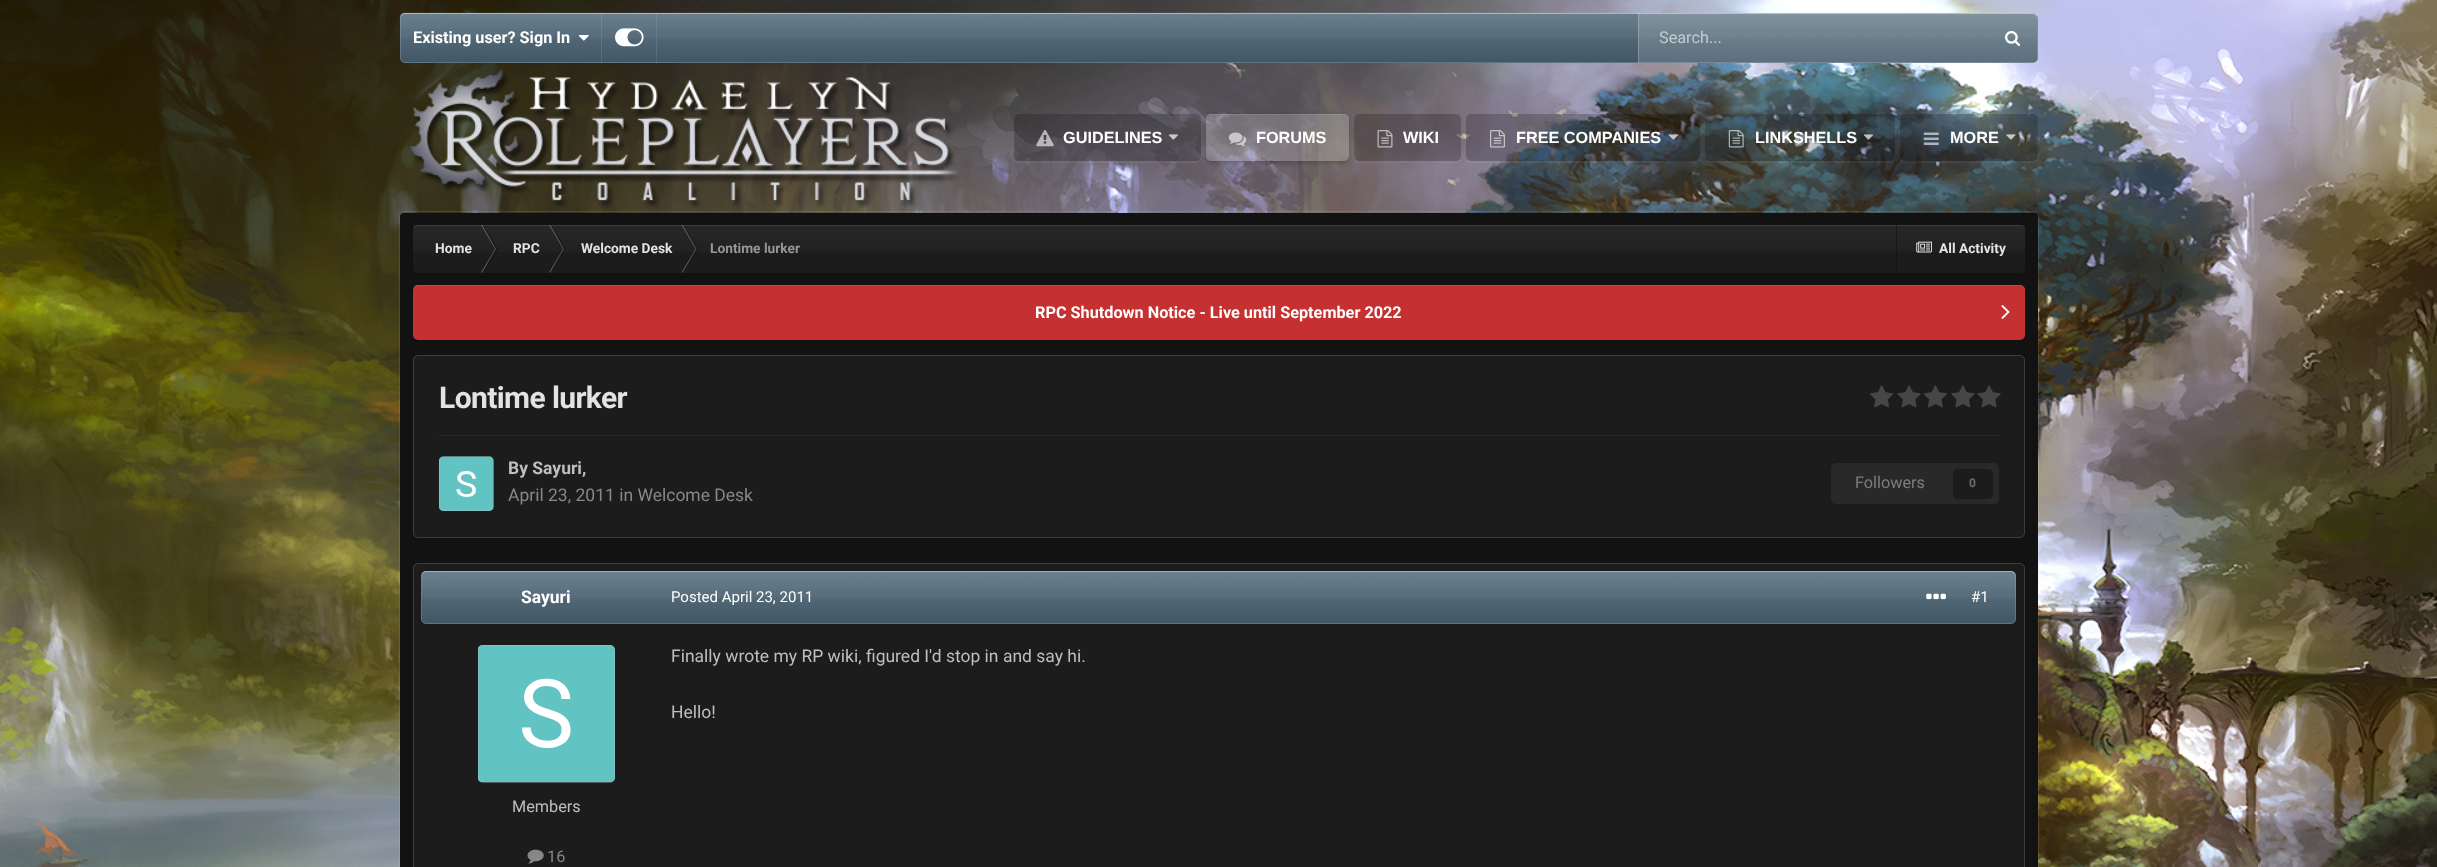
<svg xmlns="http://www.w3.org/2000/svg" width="2437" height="867">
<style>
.a{font:bold 16.25px Roboto;fill:#fff}
.b{font:16.25px Roboto;fill:#c5ccd1}
.c{font:bold 16.25px Liberation Sans;fill:#fff}
.d{font:bold 13.75px Roboto;fill:#e3e3e3}
.e{font:bold 13.75px Roboto;fill:#969696}
.f{font:bold 30px Roboto;letter-spacing:-0.6px;fill:#e3e3e3}
.g{font:bold 17.5px Roboto;fill:#bfbfbf}
.h{font:17.5px Roboto;fill:#878787}
.i{font:16.25px Roboto;fill:#7d7d7d}
.j{font:bold 12px Roboto;fill:#6e6e6e}
.k{font:bold 17.5px Roboto;fill:#fff}
.l{font:16.25px Roboto;fill:#bfbfbf}
.m{font:16.25px Roboto;fill:#878787}
.n{font:15px Roboto;fill:#fff}
.o{font:17.5px Roboto;fill:#bfbfbf}
</style>
<defs>
<clipPath id="clip1"><path d="M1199 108h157v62h-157zm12 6h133c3 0 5 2 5 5v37c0 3-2 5-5 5h-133c-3 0-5-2-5-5v-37c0-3 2-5 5-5z" clip-rule="evenodd"/></clipPath>
<linearGradient id="g1" gradientUnits="userSpaceOnUse" x1="1219" y1="225" x2="1219" y2="273"><stop offset="0" stop-color="#fff" stop-opacity="0.05"/><stop offset="1" stop-color="#fff" stop-opacity="0"/></linearGradient>
</defs>
<rect width="100%" height="100%" fill="#fff"/>
<image href="1.png" x="0" y="0" width="2437" height="867"/>
<rect fill="#415f72" x="400" y="13" width="1638" height="50" rx="5"/>
<image href="2.png" x="400" y="12" width="1638" height="50"/>
<path fill="#ffffff59" d="M405 14h1627c3 0 6 2 6 5v-1c0-3-2-5-5-5h-1628c-3 0-5 2-5 5v1c0-3 2-5 5-5z"/>
<rect fill="none" stroke="#ffffff26" x="400.5" y="13.5" width="1637" height="49" rx="4.5"/>
<path fill="#ffffff1a" d="M601 13h1v50H601z"/>
<image href="3.png" x="578" y="35" width="11" height="6"/>
<path fill="#ffffff1a" d="M656 13h1v50H656z"/>
<image href="4.png" x="615" y="28" width="29" height="19"/>
<path fill="#ffffff26" d="M1638 13h400v50H1638z"/>
<path fill="#ffffff38" d="M1638 13h1v50H1638z"/>
<image href="5.png" x="2005" y="31" width="16" height="15"/>
<image href="6.png" x="410" y="69" width="550" height="139"/>
<path fill="#ffffff0d" d="M1014 158c0 3 2 5 5 5h177c3 0 5-2 5-5c-1 2-3 3-5 3h-177c-2 0-4-1-5-3z"/>
<rect fill="#00000033" x="1014" y="114" width="187" height="47" rx="5"/>
<image href="7.png" x="1036" y="130" width="18" height="17"/>
<image href="8.png" x="1168" y="134" width="10" height="6"/>
<g clip-path="url(#clip1)">
<rect fill="#00000033" filter="blur(2px)" x="1206" y="115" width="143" height="48" rx="5"/>
</g>
<rect fill="#ffffff33" x="1206" y="114" width="143" height="47" rx="5"/>
<path fill="#ffffff1a" d="M1211 115h133c3 0 5 2 5 5v-1c0-3-2-5-5-5h-133c-3 0-5 2-5 5v1c0-3 2-5 5-5z"/>
<image href="9.png" x="1228" y="132" width="19" height="15"/>
<path fill="#ffffff0d" d="M1354 158c0 9 19 5 21 5h65c2 0 21 4 21-5c-1 2-3 3-5 3h-97c-2 0-4-1-5-3z"/>
<rect fill="#00000033" x="1354" y="114" width="107" height="47" rx="5"/>
<image href="10.png" x="1377" y="130" width="16" height="18"/>
<path fill="#ffffff0d" d="M1466 118v40c0 3 2 5 5 5h224c3 0 5-2 5-5v-2c0 12-36 5-42 5h-187c-6 0-5-7-5-11z"/>
<rect fill="#00000033" x="1466" y="114" width="234" height="47" rx="5"/>
<image href="11.png" x="1490" y="130" width="15" height="18"/>
<image href="12.png" x="1668" y="134" width="10" height="6"/>
<path fill="#ffffff0d" d="M1705 156v2c0 3 2 5 5 5h180c3 0 5-2 5-5v-2c0 3-2 5-5 5h-180c-3 0-5-2-5-5z"/>
<rect fill="#00000033" x="1705" y="114" width="190" height="47" rx="5"/>
<image href="13.png" x="1728" y="130" width="16" height="18"/>
<image href="14.png" x="1863" y="134" width="10" height="6"/>
<path fill="#ffffff0d" d="M1900 156v2c0 3 2 5 5 5h128c3 0 5-2 5-5v-38l-1-2v39c-1 8-19 4-26 4h-85c-9 0-26 4-26-5z"/>
<rect fill="#00000033" x="1900" y="114" width="138" height="47" rx="5"/>
<image href="15.png" x="1923" y="132" width="16" height="13"/>
<image href="16.png" x="2006" y="134" width="10" height="6"/>
<rect fill="none" stroke="#ffffff1a" x="399.5" y="211.5" width="1639" height="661" rx="4.5"/>
<rect fill="#121212" x="400" y="213" width="1638" height="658" rx="4"/>
<rect fill="#1c1c1c" x="413" y="225" width="1612" height="48" rx="5"/>
<path fill="url(#g1)" d="M413 225h1612v27H413z"/>
<path fill="#ffffff1a" d="M418 226h1602c3 0 5 2 5 5v-1c0-3-2-5-5-5h-1602c-2 0-4 1-4 3c1-1 2-2 4-2z"/>
<path fill="#ffffff40" d="M481 225h1.5l13.5 24h-1z"/>
<path fill="#0000004d" d="M482.5 225h1l14 24h-1.5z"/>
<path fill="#ffffff40" d="M481 272.5h1.5l13.5-23.5h-1z"/>
<path fill="#0000004d" d="M482.5 272.5h1l14-23.5h-1.5z"/>
<path fill="#ffffff40" d="M549 225h1.5l13.5 24h-1z"/>
<path fill="#0000004d" d="M550.5 225h1l14 24h-1.5z"/>
<path fill="#ffffff40" d="M549 272.5h1.5l13.5-23.5h-1z"/>
<path fill="#0000004d" d="M550.5 272.5h1l14-23.5h-1.5z"/>
<path fill="#ffffff40" d="M681.5 225h1.5l13.5 24h-1z"/>
<path fill="#0000004d" d="M683 225h1l14 24h-1.5z"/>
<path fill="#ffffff40" d="M681.5 272.5h1.5l13.5-23.5h-1z"/>
<path fill="#0000004d" d="M683 272.5h1l14-23.5h-1.5z"/>
<path fill="#0000004d" d="M1896 225h1v48H1896z"/>
<image href="17.png" x="1916" y="241" width="16" height="12"/>
<rect fill="#c53030" x="413" y="285" width="1612" height="55" rx="5"/>
<path fill="#ffffff1a" d="M418 286h1602c3 0 5 2 5 5v-1c0-3-2-5-5-5h-1602c-2 0-4 1-4 3c1-1 2-2 4-2z"/>
<image href="18.png" x="2001" y="305" width="9" height="14"/>
<rect fill="#1c1c1c" x="413" y="355" width="1612" height="183" rx="5"/>
<rect fill="none" stroke="#bfbfbf33" x="413.5" y="355.5" width="1611" height="182" rx="4.5"/>
<image href="19.png" x="1870" y="385" width="23" height="23"/>
<image href="20.png" x="1897" y="385" width="24" height="23"/>
<image href="21.png" x="1923" y="385" width="24" height="23"/>
<image href="22.png" x="1951" y="385" width="24" height="23"/>
<image href="20.png" x="1977" y="385" width="24" height="23"/>
<path fill="#292929" d="M439 435h1560v1H439z"/>
<image href="23.png" x="439" y="456" width="55" height="55"/>
<rect fill="none" stroke="#bfbfbf4d" x="439.5" y="456.5" width="54" height="54" rx="4.5"/>
<rect fill="#292929" x="1831" y="463" width="168" height="41" rx="5"/>
<rect fill="#1c1c1c" x="1953" y="469" width="40" height="30" rx="5"/>
<rect fill="#1c1c1c" x="413" y="563" width="1612" height="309" rx="5"/>
<rect fill="none" stroke="#bfbfbf33" x="413.5" y="563.5" width="1611" height="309" rx="4.5"/>
<rect fill="#415f72" x="421" y="571" width="1595" height="53" rx="5"/>
<image href="24.png" x="421" y="571" width="1595" height="53"/>
<path fill="#ffffff59" d="M426 572h1585c3 0 5 3 5 6c0-3-1-7-5-7h-1585c-4 0-5 4-5 7c0-3 2-6 5-6z"/>
<rect fill="none" stroke="#ffffff26" x="421.5" y="571.5" width="1594" height="52" rx="4.5"/>
<image href="25.png" x="478" y="645" width="137" height="138"/>
<rect fill="none" stroke="#bfbfbf4d" x="478.5" y="645.5" width="136" height="137" rx="4.5"/>
<image href="26.png" x="527" y="849" width="17" height="15"/>
<image href="27.png" x="1926" y="593" width="20" height="7"/>
<text class="a" x="413" y="43">Existing user? Sign In</text>
<text class="b" x="1659" y="43">Search...</text>
<text class="c" x="1063" y="143">GUIDELINES</text>
<text class="c" x="1256" y="143">FORUMS</text>
<text class="c" x="1403" y="143">WIKI</text>
<text class="c" x="1516" y="143">FREE COMPANIES</text>
<text class="c" x="1755" y="143">LINKSHELLS</text>
<text class="c" x="1950" y="143">MORE</text>
<text class="d" x="435" y="253">Home</text>
<text class="d" x="513" y="253">RPC</text>
<text class="d" x="581" y="253">Welcome Desk</text>
<text class="e" x="710" y="253">Lontime lurker</text>
<text class="d" x="1939" y="253">All Activity</text>
<text class="a" x="1035" y="318">RPC Shutdown Notice - Live until September 2022</text>
<text class="f" x="439" y="408">Lontime lurker</text>
<text class="g" x="508" y="474">By Sayuri,</text>
<text class="h" x="508" y="501">April 23, 2011 in Welcome Desk</text>
<text class="i" x="1855" y="488">Followers</text>
<text class="j" x="1969" y="487">0</text>
<text class="k" x="521" y="603">Sayuri</text>
<text class="l" x="512" y="812">Members</text>
<text class="m" x="547" y="862">16</text>
<text class="n" x="671" y="602">Posted April 23, 2011</text>
<text class="n" x="1971" y="602">#1</text>
<text class="o" x="671" y="662">Finally wrote my RP wiki, figured I'd stop in and say hi.</text>
<text class="o" x="671" y="718">Hello!</text>
</svg>
